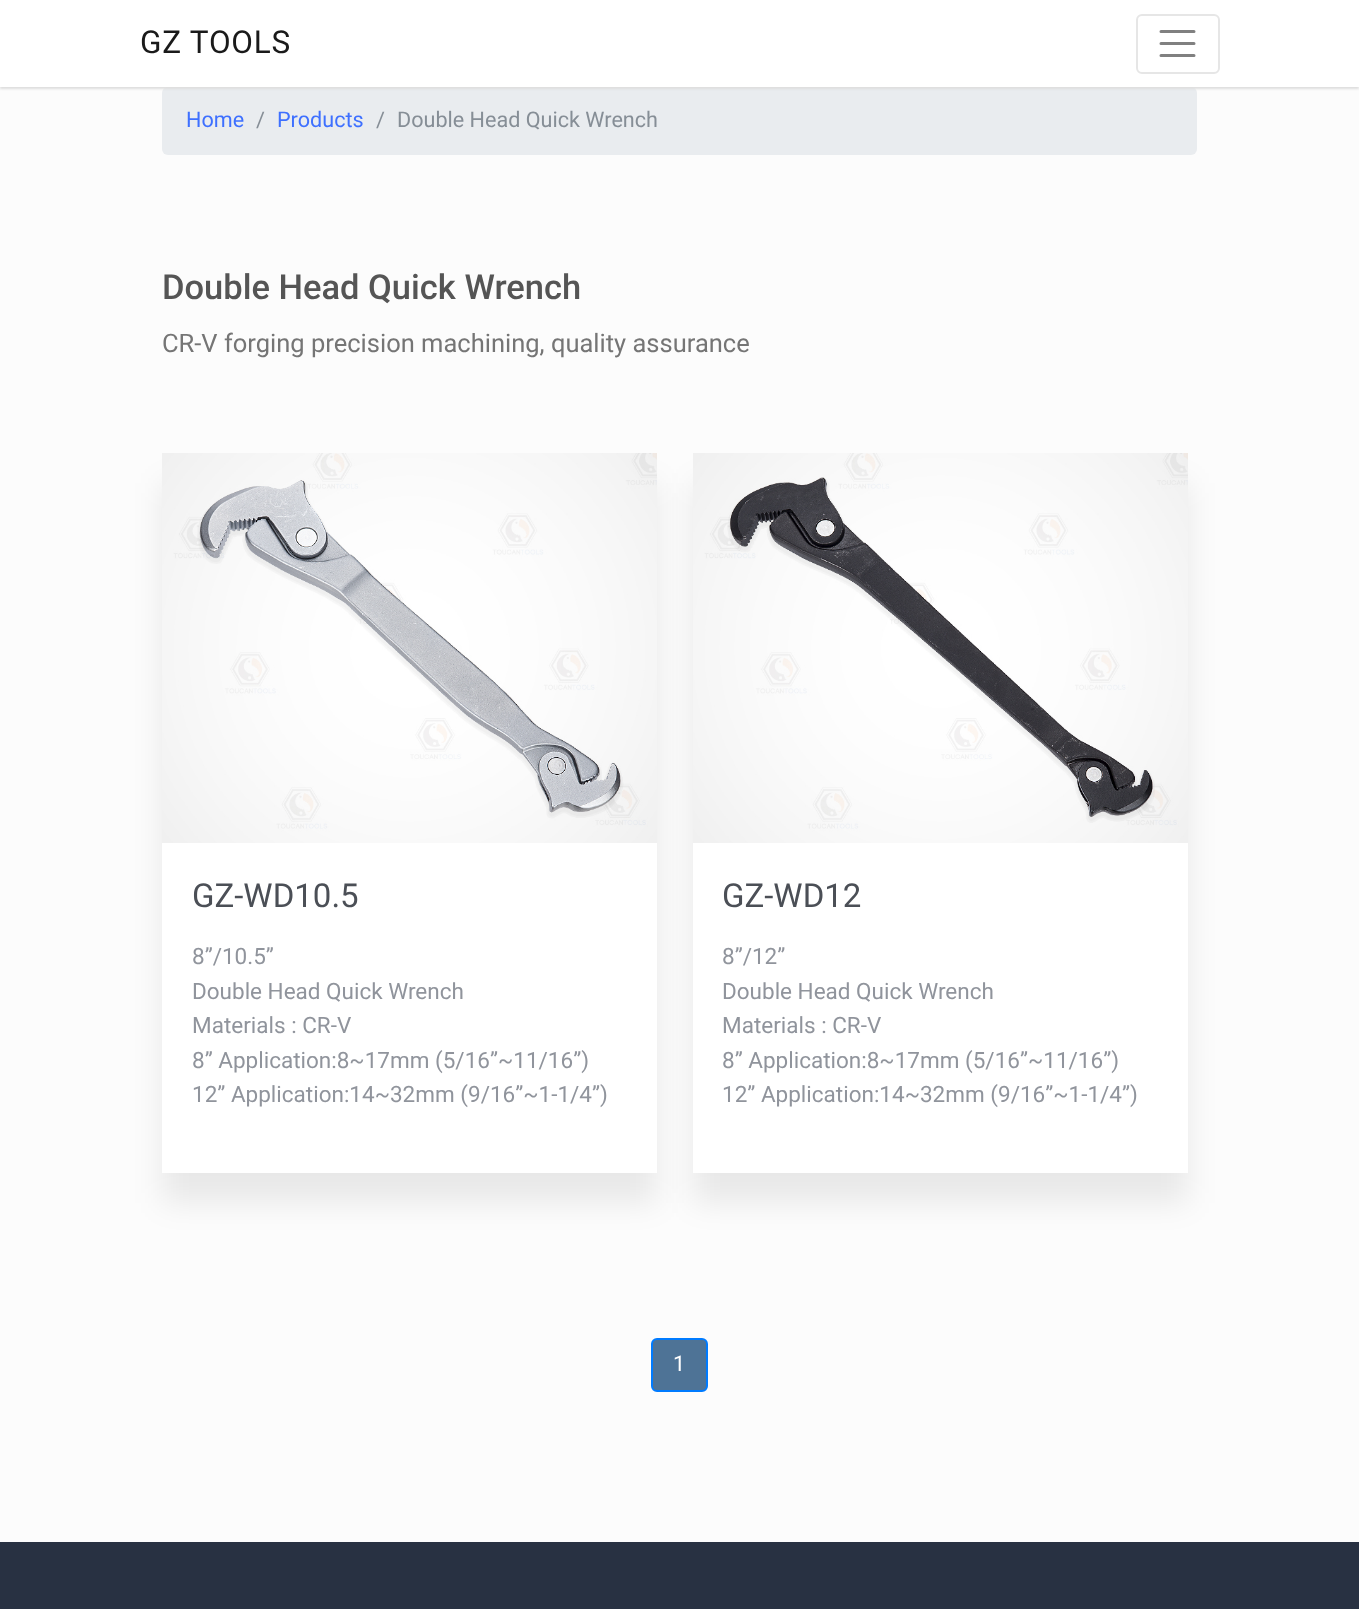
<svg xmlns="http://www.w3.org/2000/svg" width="1359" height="1609">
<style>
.a{font:31.5px Roboto;letter-spacing:0.75px;fill:#1a1a1a}
.b{font:21.6px Roboto;fill:#3e70ff}
.c{font:21.6px Roboto;fill:#868e96}
.d{font:500 34.5px Roboto;fill:#555}
.e{font:25.5px Roboto;fill:#757575}
.f{font:33px Roboto;fill:#4b4f56}
.g{font:22.5px Roboto;fill:#90949c}
.h{font:21.6px Roboto;fill:#fff}
</style>
<rect width="100%" height="100%" fill="#fcfcfc"/>
<rect fill="#e9ecef" x="162" y="87" width="1035" height="68" rx="6"/>
<path fill="#ddd" filter="blur(1px)" d="M0 2h1359v87H0z"/>
<path fill="#fff" d="M0 0h1359v87H0z"/>
<rect fill="none" stroke="#e6e6e6" stroke-width="2" x="1137" y="15" width="82" height="58" rx="5"/>
<path fill="none" stroke="#808080" stroke-width="3" stroke-linecap="round" d="M1161 31.5h33m-33 12h33m-33 12h33"/>
<path fill="#00000014" filter="blur(15px)" d="M162 483h495v720H162z"/>
<path fill="#fff" d="M162 843h495v330H162z"/>
<image href="1.png" x="162" y="453" width="495" height="390"/>
<path fill="#00000014" filter="blur(15px)" d="M693 483h495v720H693z"/>
<path fill="#fff" d="M693 843h495v330H693z"/>
<image href="2.png" x="693" y="453" width="495" height="390"/>
<rect fill="#4e7396" stroke="#007bff" stroke-width="2" x="652" y="1339" width="55" height="52" rx="5"/>
<path fill="#283142" d="M0 1542h1359v67H0z"/>
<text class="a" x="140" y="53">GZ TOOLS</text>
<text class="b" x="186" y="127">Home</text>
<text class="c" x="256" y="127">/</text>
<text class="b" x="277" y="127">Products</text>
<text class="c" x="376" y="127">/</text>
<text class="c" x="397" y="127">Double Head Quick Wrench</text>
<text class="d" x="162" y="299">Double Head Quick Wrench</text>
<text class="e" x="162" y="352">CR-V forging precision machining, quality assurance</text>
<text class="f" x="192" y="907">GZ-WD10.5</text>
<text class="g" x="192" y="964">8”/10.5”</text>
<text class="g" x="192" y="999">Double Head Quick Wrench</text>
<text class="g" x="192" y="1033">Materials : CR-V</text>
<text class="g" x="192" y="1068">8” Application:8~17mm (5/16”~11/16”)</text>
<text class="g" x="192" y="1102">12” Application:14~32mm (9/16”~1-1/4”)</text>
<text class="f" x="722" y="907">GZ-WD12</text>
<text class="g" x="722" y="964">8”/12”</text>
<text class="g" x="722" y="999">Double Head Quick Wrench</text>
<text class="g" x="722" y="1033">Materials : CR-V</text>
<text class="g" x="722" y="1068">8” Application:8~17mm (5/16”~11/16”)</text>
<text class="g" x="722" y="1102">12” Application:14~32mm (9/16”~1-1/4”)</text>
<text class="h" x="673" y="1371">1</text>
</svg>
